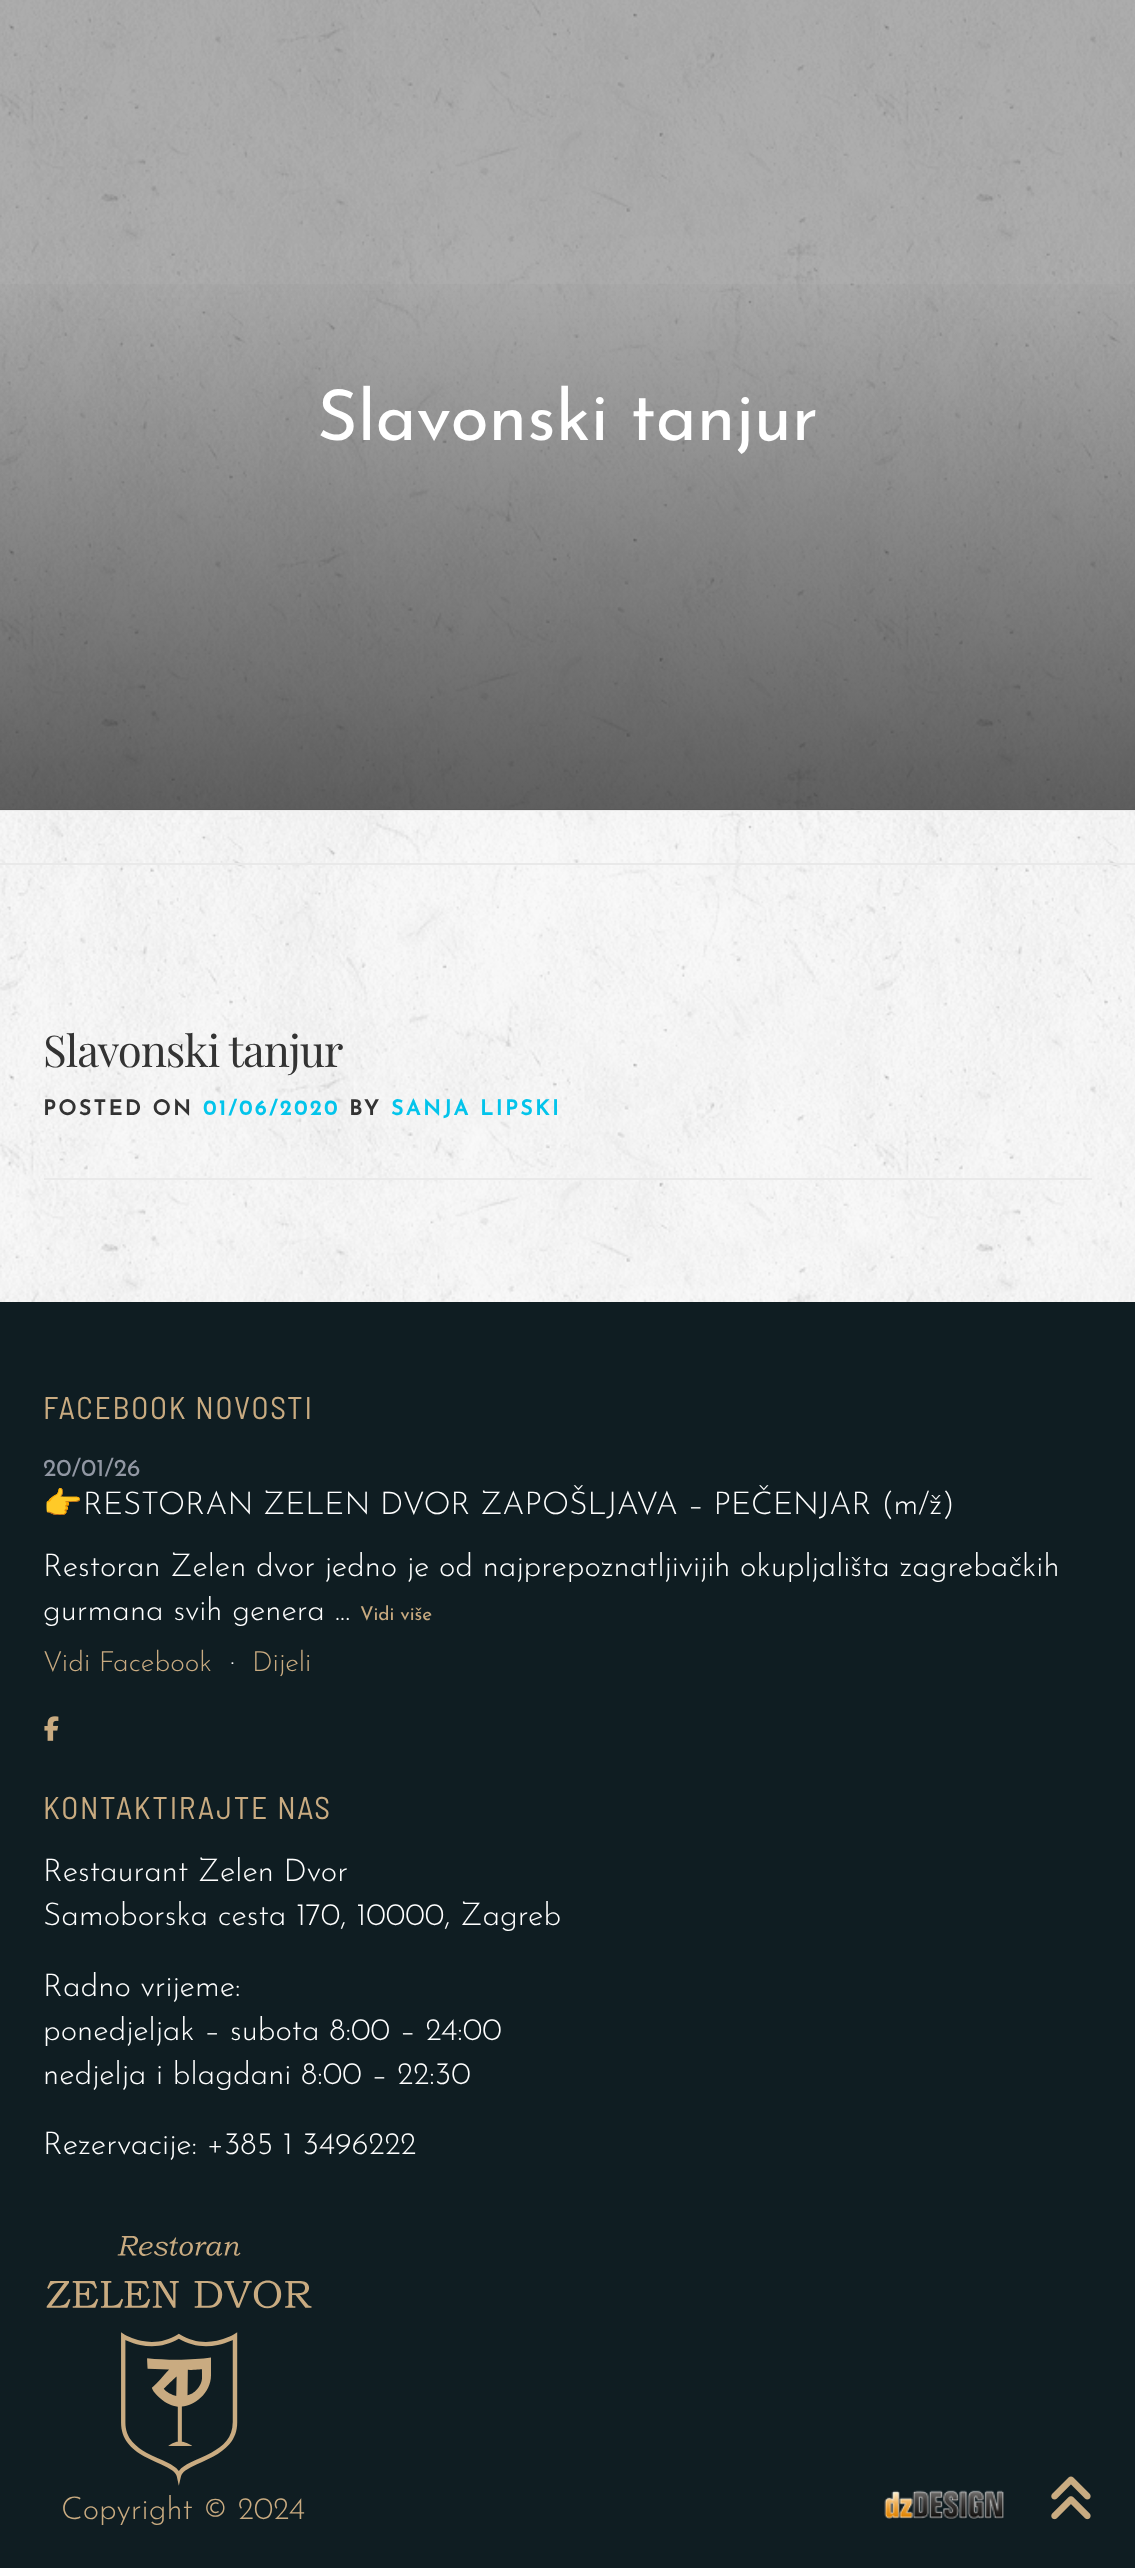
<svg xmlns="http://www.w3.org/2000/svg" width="1135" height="2568">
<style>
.a{font:70px Josefin Sans;fill:#fff}
.b{font:43.75px Playfair Display;letter-spacing:-1px;fill:#333}
.c{font:bold 21px Josefin Sans;letter-spacing:2.6px;fill:#333}
.d{font:bold 21px Josefin Sans;letter-spacing:2.6px;fill:#03c4eb}
.e{font:31.5px Barlow Semi Condensed;letter-spacing:1.75px;fill:#c9ab81}
.f{font:24.5px Josefin Sans;fill:#9197a3}
.g{font:31.5px Noto Color Emoji;fill:#fff}
.h{font:300 31.5px Josefin Sans;fill:#fff}
.i{font:19px Josefin Sans;fill:#c9ab81}
.j{font:300 28px Josefin Sans;fill:#c9ab81}
.k{font:300 28px Josefin Sans;fill:#fff}
.l{font:300 31.5px Josefin Sans;fill:#c9ab81}
</style>
<defs>
<linearGradient id="g1" gradientUnits="userSpaceOnUse" x1="568" y1="257" x2="568" y2="810"><stop offset="0" stop-color="#000" stop-opacity="0"/><stop offset="1" stop-color="#000" stop-opacity="0.45"/></linearGradient>
<clipPath id="clip1"><path d="M44 1454h1048v256H44z"/></clipPath>
</defs>
<rect width="100%" height="100%" fill="#fff"/>
<image href="1.png" x="0" y="0" width="1135" height="1302"/>
<path fill="#e9e9e9" d="M0 809h1135v2H0z"/>
<path fill="#0000004d" d="M0 0h1135v810H0z"/>
<path fill="url(#g1)" d="M0 284h1135v526H0z"/>
<path fill="#e9e9e9" d="M0 863h1135v2H0z"/>
<path fill="#e9e9e9" d="M44 1178h1048v2H44z"/>
<path fill="#0f1d22" d="M0 1302h1135v1266H0z"/>
<image href="2.png" x="44" y="1716" width="15" height="25"/>
<image href="3.png" x="46" y="2236" width="266" height="250"/>
<image href="4.png" x="884" y="2490" width="120" height="30"/>
<image href="5.png" x="1051" y="2476" width="40" height="44"/>
<text class="a" x="317" y="440">Slavonski tanjur</text>
<text class="b" x="43" y="1067">Slavonski tanjur</text>
<text class="c" x="43" y="1115">POSTED ON</text>
<text class="d" x="203" y="1115">01/06/2020</text>
<text class="c" x="349" y="1115">BY</text>
<text class="d" x="391" y="1115">SANJA LIPSKI</text>
<text class="e" x="43" y="1419">FACEBOOK NOVOSTI</text>
<text class="f" x="43" y="1476">20/01/26</text>
<g clip-path="url(#clip1)">
<text class="g" x="43" y="1514">👉</text>
</g>
<text class="h" x="83" y="1514">RESTORAN ZELEN DVOR ZAPOŠLJAVA – PEČENJAR (m/ž)</text>
<text class="h" x="43" y="1576">Restoran Zelen dvor jedno je od najprepoznatljivijih okupljališta zagrebačkih</text>
<text class="h" x="43" y="1620">gurmana svih genera ...</text>
<text class="i" x="360" y="1620">Vidi više</text>
<text class="j" x="43" y="1671">Vidi Facebook</text>
<text class="k" x="230" y="1671">·</text>
<text class="j" x="252" y="1671">Dijeli</text>
<text class="e" x="43" y="1819">KONTAKTIRAJTE NAS</text>
<text class="h" x="43" y="1881">Restaurant Zelen Dvor</text>
<text class="h" x="43" y="1925">Samoborska cesta 170, 10000, Zagreb</text>
<text class="h" x="43" y="1996">Radno vrijeme:</text>
<text class="h" x="43" y="2040">ponedjeljak – subota 8:00 – 24:00</text>
<text class="h" x="43" y="2084">nedjelja i blagdani 8:00 – 22:30</text>
<text class="h" x="43" y="2154">Rezervacije: +385 1 3496222</text>
<text class="l" x="61" y="2519">Copyright © 2024</text>
</svg>
